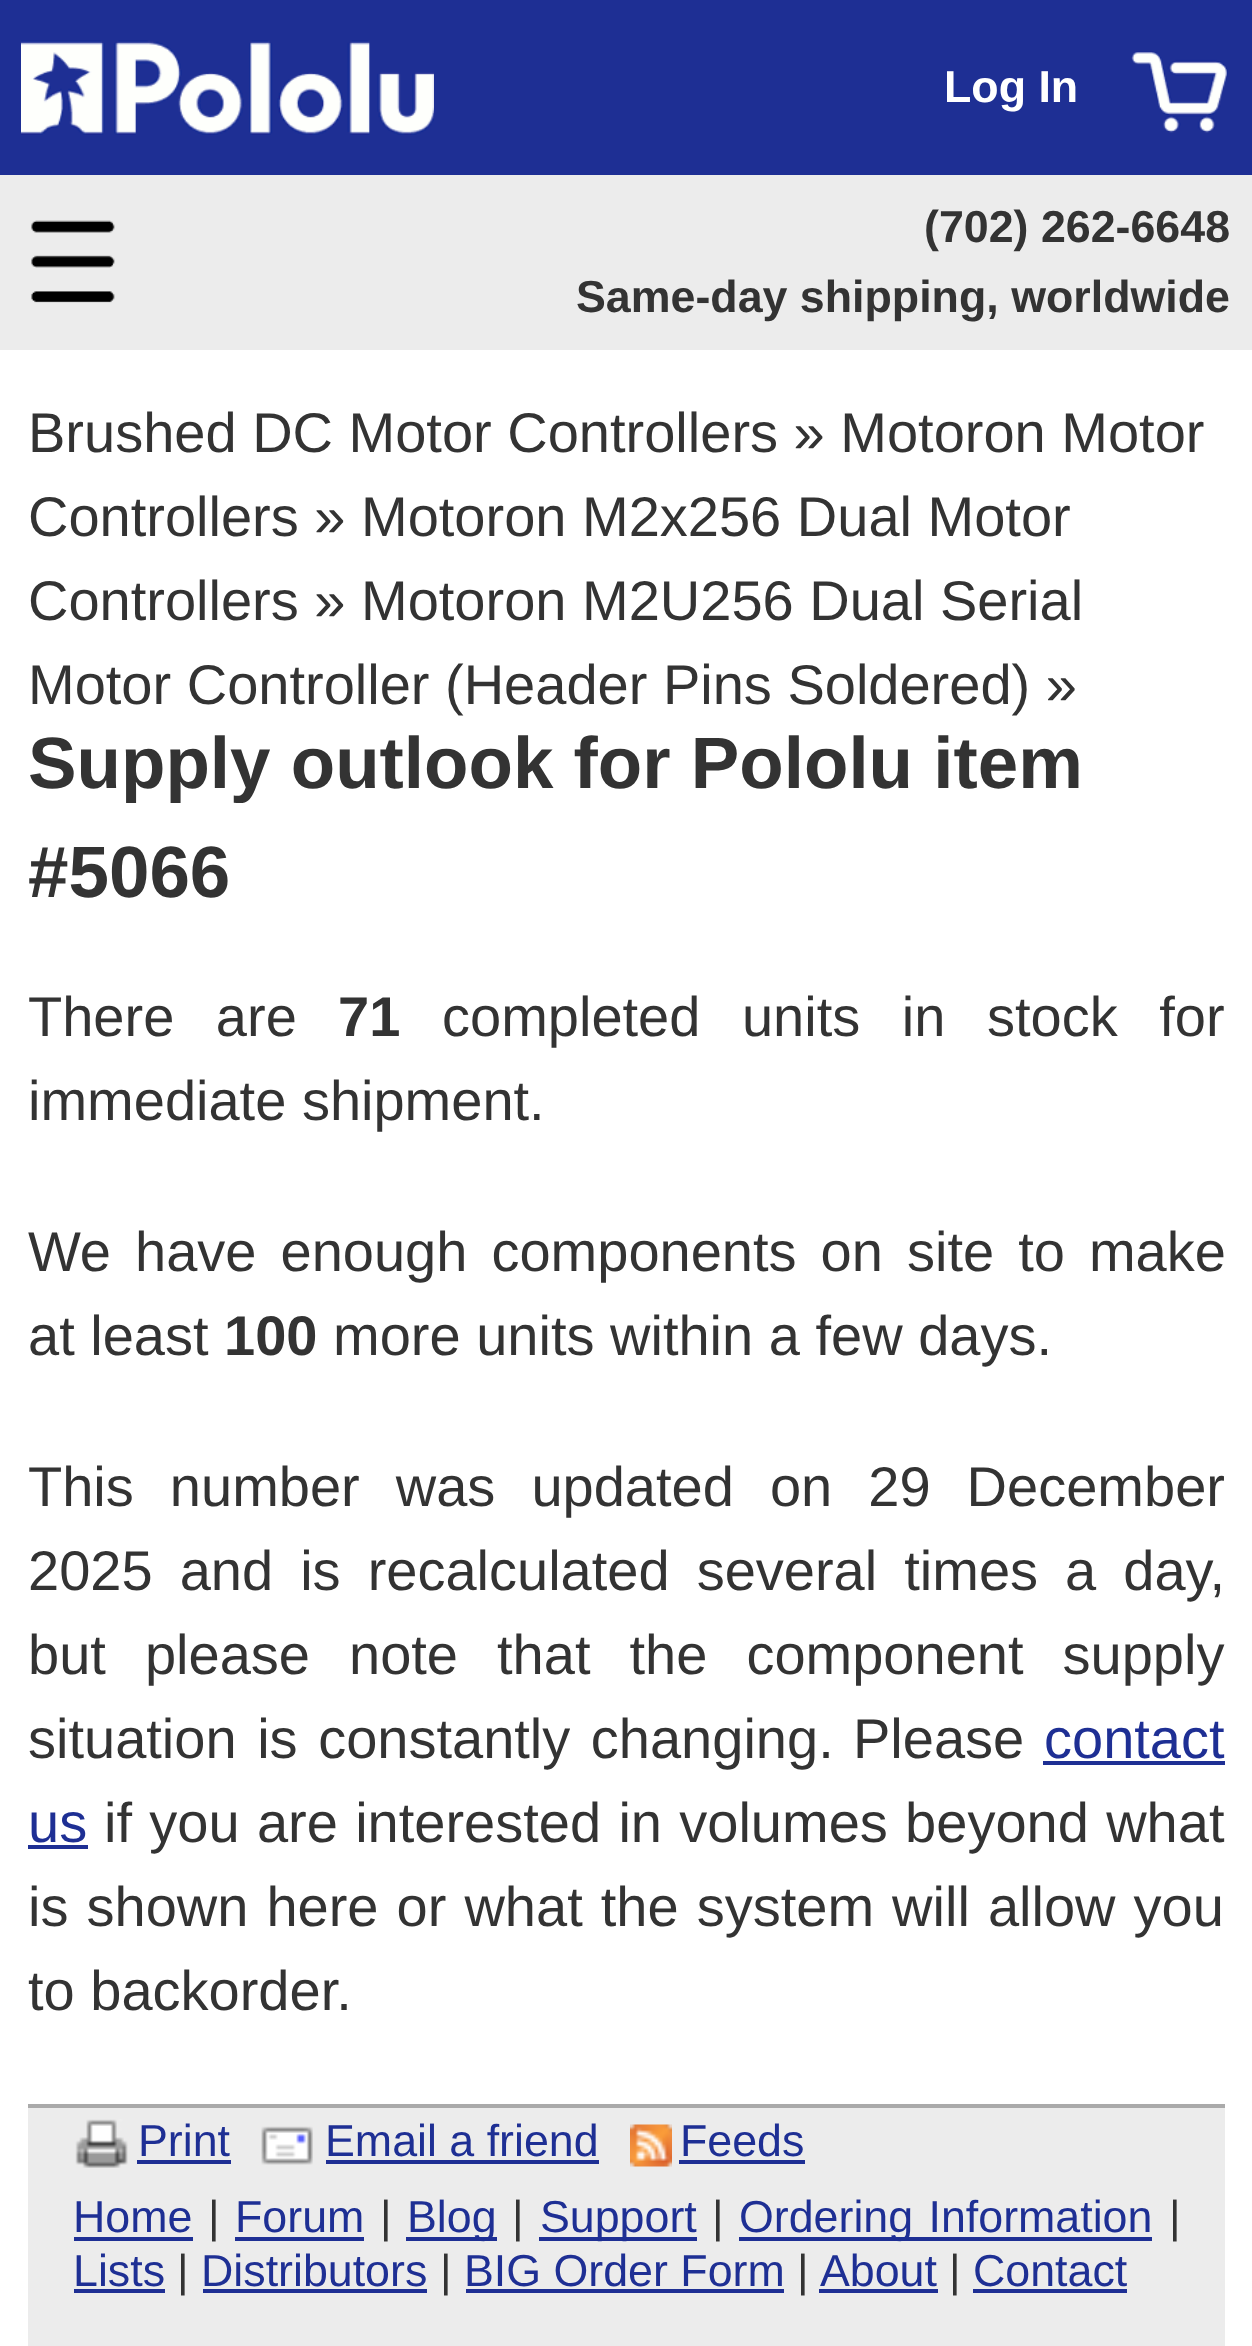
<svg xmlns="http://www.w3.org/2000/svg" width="1252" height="2346">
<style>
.a{font:bold 44.75px Liberation Sans;fill:#fff}
.b{font:bold 44.75px Liberation Sans;fill:#333}
.c{font:56px Liberation Sans;fill:#333}
.d{font:bold 72.75px Liberation Sans;fill:#333}
.e{font:bold 56px Liberation Sans;fill:#333}
.f{font:56px Liberation Sans;fill:#1e2f94}
.g{font:44.75px Liberation Sans;fill:#1e2f94}
.h{font:44.75px Liberation Sans;fill:#333}
</style>
<rect width="100%" height="100%" fill="#fff"/>
<path fill="#1e2f94" d="M0 0h1252v175H0z"/>
<image href="1.png" x="21" y="40" width="413" height="95"/>
<image href="2.png" x="1131" y="51" width="97" height="82"/>
<path fill="#ececec" d="M0 175h1252v175H0z"/>
<image href="3.png" x="31" y="220" width="84" height="83"/>
<path fill="#1e2f94" d="M1043 1761h182v4H1043z"/>
<path fill="#1e2f94" d="M28 1845h60v4H28z"/>
<path fill="#ececec" d="M28 2108h1197v238H28z"/>
<path fill="#aaa" d="M28 2104h1197v4H28z"/>
<image href="4.png" x="75" y="2119" width="53" height="49"/>
<path fill="#1e2f94" d="M137 2160h94v4H137z"/>
<image href="5.png" x="261" y="2126" width="52" height="39"/>
<path fill="#1e2f94" d="M326 2160h273v4H326z"/>
<image href="6.png" x="630" y="2124" width="42" height="43"/>
<path fill="#1e2f94" d="M679 2160h126v4H679z"/>
<path fill="#1e2f94" d="M74 2237h119v4H74z"/>
<path fill="#1e2f94" d="M235 2237h129v4H235z"/>
<path fill="#1e2f94" d="M406 2237h91v4H406z"/>
<path fill="#1e2f94" d="M539 2237h158v4H539z"/>
<path fill="#1e2f94" d="M739 2237h413v4H739z"/>
<path fill="#1e2f94" d="M74 2289h91v4H74z"/>
<path fill="#1e2f94" d="M203 2289h224v4H203z"/>
<path fill="#1e2f94" d="M466 2289h318v4H466z"/>
<path fill="#1e2f94" d="M819 2289h119v4H819z"/>
<path fill="#1e2f94" d="M973 2289h154v4H973z"/>
<text class="a" x="944" y="102">Log In</text>
<text class="b" x="924" y="242">(702) 262-6648</text>
<text class="b" x="576" y="312">Same-day shipping, worldwide</text>
<text class="c" x="28" y="452">Brushed DC Motor Controllers » Motoron Motor</text>
<text class="c" x="28" y="536">Controllers » Motoron M2x256 Dual Motor</text>
<text class="c" x="28" y="620">Controllers » Motoron M2U256 Dual Serial</text>
<text class="c" x="28" y="704">Motor Controller (Header Pins Soldered) »</text>
<text class="d" x="28" y="788">Supply outlook for Pololu item</text>
<text class="d" x="28" y="897">#5066</text>
<text class="c" x="28" y="1036" word-spacing="26">There are</text>
<text class="e" x="338" y="1036">71</text>
<text class="c" x="442" y="1036" word-spacing="26">completed units in stock for</text>
<text class="c" x="28" y="1120">immediate shipment.</text>
<text class="c" x="28" y="1271" word-spacing="8.5">We have enough components on site to make</text>
<text class="c" x="28" y="1355">at least</text>
<text class="e" x="224" y="1355">100</text>
<text class="c" x="333" y="1355">more units within a few days.</text>
<text class="c" x="28" y="1506" word-spacing="20.5">This number was updated on 29 December</text>
<text class="c" x="28" y="1590" word-spacing="11.5">2025 and is recalculated several times a day,</text>
<text class="c" x="28" y="1674" word-spacing="23.5">but please note that the component supply</text>
<text class="c" x="28" y="1758" word-spacing="5">situation is constantly changing.</text>
<text class="c" x="853" y="1758">Please</text>
<text class="f" x="1044" y="1758">contact</text>
<text class="f" x="28" y="1842">us</text>
<text class="c" x="104" y="1842" word-spacing="1.75">if you are interested in volumes beyond what</text>
<text class="c" x="28" y="1926" word-spacing="2.5">is shown here or what the system will allow you</text>
<text class="c" x="28" y="2010">to backorder.</text>
<text class="g" x="138" y="2156">Print</text>
<text class="g" x="325" y="2156">Email a friend</text>
<text class="g" x="680" y="2156">Feeds</text>
<text class="g" x="73" y="2232">Home</text>
<text class="h" x="208" y="2232">|</text>
<text class="g" x="235" y="2232">Forum</text>
<text class="h" x="380" y="2232">|</text>
<text class="g" x="407" y="2232">Blog</text>
<text class="h" x="512" y="2232">|</text>
<text class="g" x="540" y="2232">Support</text>
<text class="h" x="712" y="2232">|</text>
<text class="g" x="739" y="2232" word-spacing="3">Ordering Information</text>
<text class="h" x="1169" y="2232">|</text>
<text class="g" x="73" y="2286">Lists</text>
<text class="h" x="177" y="2286">|</text>
<text class="g" x="201" y="2286">Distributors</text>
<text class="h" x="440" y="2286">|</text>
<text class="g" x="464" y="2286">BIG Order Form</text>
<text class="h" x="797" y="2286">|</text>
<text class="g" x="820" y="2286">About</text>
<text class="h" x="949" y="2286">|</text>
<text class="g" x="973" y="2286">Contact</text>
</svg>
